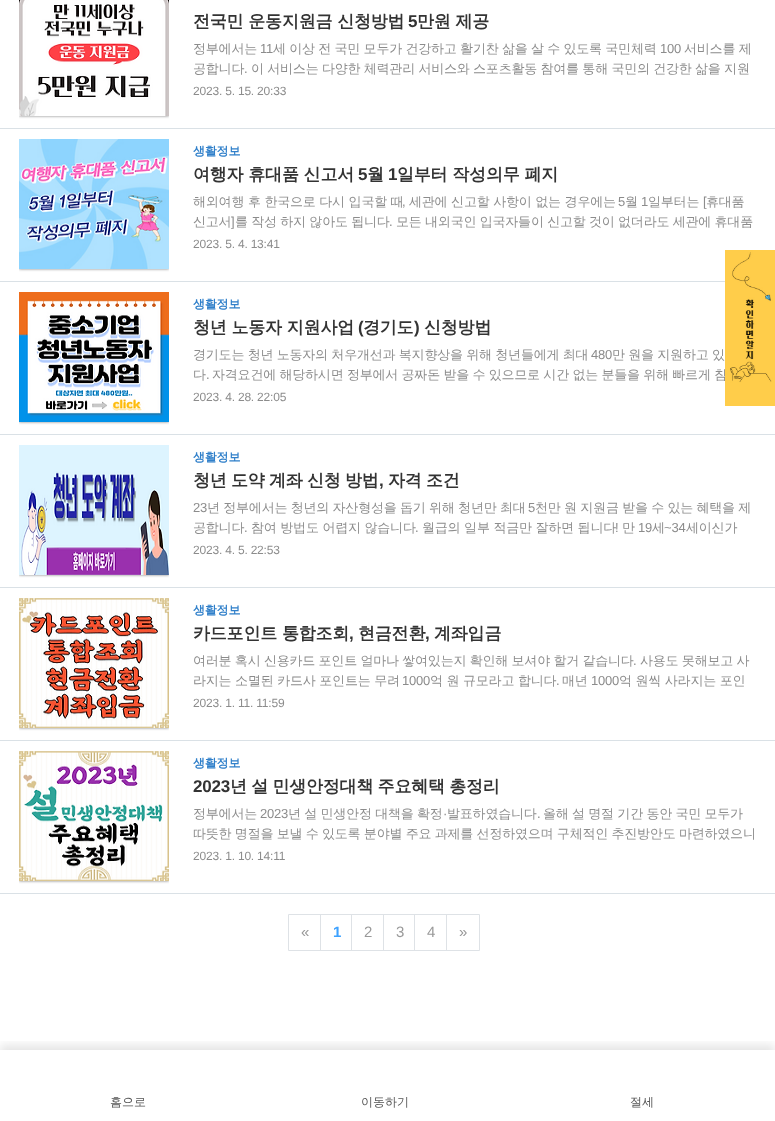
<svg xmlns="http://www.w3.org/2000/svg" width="775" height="1121">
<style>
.a{font:bold 17px WenQuanYi Zen Hei;letter-spacing:-0.2px;fill:#333}
.b{font:bold 17px Liberation Sans;letter-spacing:-0.2px;fill:#333}
.c{font:500 13px WenQuanYi Zen Hei;letter-spacing:-0.2px;fill:#8c8c8c}
.d{font:13px Liberation Sans;letter-spacing:-0.2px;fill:#8c8c8c}
.e{font:12px Liberation Sans;letter-spacing:-0.2px;fill:#8c8c8c}
.f{font:bold 12px WenQuanYi Zen Hei;letter-spacing:-0.2px;fill:#3180ca}
.g{font:15px Liberation Sans;fill:#999}
.h{font:bold 15px Liberation Sans;fill:#3ea2ff}
.i{font:500 12px WenQuanYi Zen Hei;fill:#555}
</style>
<defs>
<clipPath id="clip1"><path d="M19 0h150v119H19z"/></clipPath>
<clipPath id="clip2"><path d="M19 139h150v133H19z"/></clipPath>
<clipPath id="clip3"><path d="M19 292h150v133H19z"/></clipPath>
<clipPath id="clip4"><path d="M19 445h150v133H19z"/></clipPath>
<clipPath id="clip5"><path d="M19 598h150v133H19z"/></clipPath>
<clipPath id="clip6"><path d="M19 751h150v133H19z"/></clipPath>
<clipPath id="clip7"><path d="M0 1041h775v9H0z"/></clipPath>
</defs>
<rect width="100%" height="100%" fill="#fff"/>
<g clip-path="url(#clip1)">
<path fill="#808080" filter="blur(1.5px)" d="M19 -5h150v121H19z"/>
</g>
<image href="1.png" x="19" y="0" width="150" height="116"/>
<path fill="#dae1e6" d="M0 128h775v1H0z"/>
<g clip-path="url(#clip2)">
<path fill="#808080" filter="blur(1.5px)" d="M19 139h150v130H19z"/>
</g>
<image href="2.png" x="19" y="139" width="150" height="130"/>
<path fill="#dae1e6" d="M0 281h725v1H0z"/>
<g clip-path="url(#clip3)">
<path fill="#808080" filter="blur(1.5px)" d="M19 292h150v130H19z"/>
</g>
<image href="3.png" x="19" y="292" width="150" height="130"/>
<path fill="#dae1e6" d="M0 434h775v1H0z"/>
<g clip-path="url(#clip4)">
<path fill="#808080" filter="blur(1.5px)" d="M19 445h150v130H19z"/>
</g>
<image href="4.png" x="19" y="445" width="150" height="130"/>
<path fill="#dae1e6" d="M0 587h775v1H0z"/>
<g clip-path="url(#clip5)">
<path fill="#808080" filter="blur(1.5px)" d="M19 598h150v130H19z"/>
</g>
<image href="5.png" x="19" y="598" width="150" height="130"/>
<path fill="#dae1e6" d="M0 740h775v1H0z"/>
<g clip-path="url(#clip6)">
<path fill="#808080" filter="blur(1.5px)" d="M19 751h150v130H19z"/>
</g>
<image href="6.png" x="19" y="751" width="150" height="130"/>
<path fill="#dae1e6" d="M0 893h775v1H0z"/>
<path fill="none" stroke="#dee2e6" d="M288.5 914.5h33v36H288.5z"/>
<path fill="#fff" d="M321 915h1v35H321z"/>
<path fill="none" stroke="#dee2e6" d="M320.5 914.5h33v36H320.5z"/>
<path fill="#fff" d="M353 915h1v35H353z"/>
<path fill="none" stroke="#dee2e6" d="M351.5 914.5h33v36H351.5z"/>
<path fill="#fff" d="M384 915h1v35H384z"/>
<path fill="none" stroke="#dee2e6" d="M383.5 914.5h33v36H383.5z"/>
<path fill="#fff" d="M416 915h1v35H416z"/>
<path fill="none" stroke="#dee2e6" d="M414.5 914.5h33v36H414.5z"/>
<path fill="#fff" d="M447 915h1v35H447z"/>
<path fill="none" stroke="#dee2e6" d="M446.5 914.5h33v36H446.5z"/>
<g clip-path="url(#clip7)">
<path fill="#0000001a" filter="blur(5px)" d="M0 1045h775v71H0z"/>
</g>
<text class="a" x="193" y="27">전국민 운동지원금 신청방법</text>
<text class="b" x="408" y="27">5</text>
<text class="a" x="417" y="27">만원 제공</text>
<text class="c" x="193" y="53">정부에서는</text>
<text class="d" x="260" y="53">11</text>
<text class="c" x="273" y="53" word-spacing="-0.25">세 이상 전 국민 모두가 건강하고 활기찬 삶을 살 수 있도록 국민체력</text>
<text class="d" x="660" y="53">100</text>
<text class="c" x="684" y="53" word-spacing="-0.25">서비스를 제</text>
<text class="c" x="193" y="73">공합니다</text>
<text class="d" x="244" y="73">.</text>
<text class="c" x="251" y="73" word-spacing="-0.25">이 서비스는 다양한 체력관리 서비스와 스포츠활동 참여를 통해 국민의 건강한 삶을 지원</text>
<text class="e" x="193" y="95">2023. 5. 15. 20:33</text>
<text class="f" x="193" y="155">생활정보</text>
<text class="a" x="193" y="180">여행자 휴대품 신고서</text>
<text class="b" x="358" y="180">5</text>
<text class="a" x="367" y="180">월</text>
<text class="b" x="388" y="180">1</text>
<text class="a" x="397" y="180">일부터 작성의무 폐지</text>
<text class="c" x="193" y="206">해외여행 후 한국으로 다시 입국할 때</text>
<text class="d" x="402" y="206">,</text>
<text class="c" x="409" y="206">세관에 신고할 사항이 없는 경우에는</text>
<text class="d" x="618" y="206">5</text>
<text class="c" x="625" y="206">월</text>
<text class="d" x="641" y="206">1</text>
<text class="c" x="648" y="206">일부터는</text>
<text class="d" x="703" y="206">[</text>
<text class="c" x="706" y="206">휴대품</text>
<text class="c" x="193" y="226">신고서</text>
<text class="d" x="231" y="226">]</text>
<text class="c" x="235" y="226" word-spacing="-0.25">를 작성 하지 않아도 됩니다</text>
<text class="d" x="389" y="226">.</text>
<text class="c" x="396" y="226" word-spacing="-0.25">모든 내외국인 입국자들이 신고할 것이 없더라도 세관에 휴대품</text>
<text class="e" x="193" y="248">2023. 5. 4. 13:41</text>
<text class="f" x="193" y="308">생활정보</text>
<text class="a" x="193" y="333">청년 노동자 지원사업</text>
<text class="b" x="358" y="333">(</text>
<text class="a" x="363" y="333">경기도</text>
<text class="b" x="414" y="333">)</text>
<text class="a" x="424" y="333">신청방법</text>
<text class="c" x="193" y="359" word-spacing="-0.25">경기도는 청년 노동자의 처우개선과 복지향상을 위해 청년들에게 최대</text>
<text class="d" x="591" y="359">480</text>
<text class="c" x="612" y="359" word-spacing="-0.25">만 원을 지원하고 있</text>
<text class="c" x="193" y="379">다</text>
<text class="d" x="206" y="379">.</text>
<text class="c" x="212" y="379" word-spacing="-0.25">자격요건에 해당하시면 정부에서 공짜돈 받을 수 있으므로 시간 없는 분들을 위해 빠르게 참</text>
<text class="e" x="193" y="401">2023. 4. 28. 22:05</text>
<text class="f" x="193" y="461">생활정보</text>
<text class="a" x="193" y="486" word-spacing="-0.5">청년 도약 계좌 신청 방법</text>
<text class="b" x="379" y="486">,</text>
<text class="a" x="388" y="486" word-spacing="-0.5">자격 조건</text>
<text class="d" x="193" y="512">23</text>
<text class="c" x="207" y="512" word-spacing="-0.25">년 정부에서는 청년의 자산형성을 돕기 위해 청년만 최대</text>
<text class="d" x="528" y="512">5</text>
<text class="c" x="535" y="512" word-spacing="-0.25">천만 원 지원금 받을 수 있는 혜택을 제</text>
<text class="c" x="193" y="532">공합니다</text>
<text class="d" x="244" y="532">.</text>
<text class="c" x="251" y="532">참여 방법도 어렵지 않습니다</text>
<text class="d" x="415" y="532">.</text>
<text class="c" x="422" y="532">월급의 일부 적금만 잘하면 됩니다</text>
<text class="d" x="615" y="532">!</text>
<text class="c" x="622" y="532">만</text>
<text class="d" x="638" y="532">19</text>
<text class="c" x="652" y="532">세</text>
<text class="d" x="664" y="532">~34</text>
<text class="c" x="686" y="532">세이신가</text>
<text class="e" x="193" y="554">2023. 4. 5. 22:53</text>
<text class="f" x="193" y="614">생활정보</text>
<text class="a" x="193" y="639">카드포인트 통합조회</text>
<text class="b" x="349" y="639">,</text>
<text class="a" x="358" y="639">현금전환</text>
<text class="b" x="425" y="639">,</text>
<text class="a" x="434" y="639">계좌입금</text>
<text class="c" x="193" y="665" word-spacing="-0.25">여러분 혹시 신용카드 포인트 얼마나 쌓여있는지 확인해 보셔야 할거 같습니다</text>
<text class="d" x="633" y="665">.</text>
<text class="c" x="640" y="665" word-spacing="-0.25">사용도 못해보고 사</text>
<text class="c" x="193" y="685">라지는 소멸된 카드사 포인트는 무려</text>
<text class="d" x="402" y="685">1000</text>
<text class="c" x="430" y="685">억 원 규모라고 합니다</text>
<text class="d" x="556" y="685">.</text>
<text class="c" x="562" y="685">매년</text>
<text class="d" x="591" y="685">1000</text>
<text class="c" x="619" y="685">억 원씩 사라지는 포인</text>
<text class="e" x="193" y="707">2023. 1. 11. 11:59</text>
<text class="f" x="193" y="767">생활정보</text>
<text class="b" x="193" y="792">2023</text>
<text class="a" x="230" y="792" word-spacing="-0.5">년 설 민생안정대책 주요혜택 총정리</text>
<text class="c" x="193" y="818">정부에서는</text>
<text class="d" x="260" y="818">2023</text>
<text class="c" x="288" y="818" word-spacing="-0.25">년 설 민생안정 대책을 확정</text>
<text class="d" x="443" y="818">·</text>
<text class="c" x="447" y="818">발표하였습니다</text>
<text class="c" x="543" y="818" word-spacing="-0.25">올해 설 명절 기간 동안 국민 모두가</text>
<text class="d" x="537" y="818">.</text>
<text class="c" x="193" y="838" word-spacing="-0.25">따뜻한 명절을 보낼 수 있도록 분야별 주요 과제를 선정하였으며 구체적인 추진방안도 마련하였으니</text>
<text class="e" x="193" y="860">2023. 1. 10. 14:11</text>
<text class="g" x="301" y="937">«</text>
<text class="h" x="333" y="937">1</text>
<text class="g" x="364" y="937">2</text>
<text class="g" x="396" y="937">3</text>
<text class="g" x="427" y="937">4</text>
<text class="g" x="459" y="937">»</text>
<image href="7.png" x="725" y="250" width="50" height="156"/>
<text class="i" x="110" y="1106">홈으로</text>
<text class="i" x="361" y="1106">이동하기</text>
<text class="i" x="630" y="1106">절세</text>
</svg>
